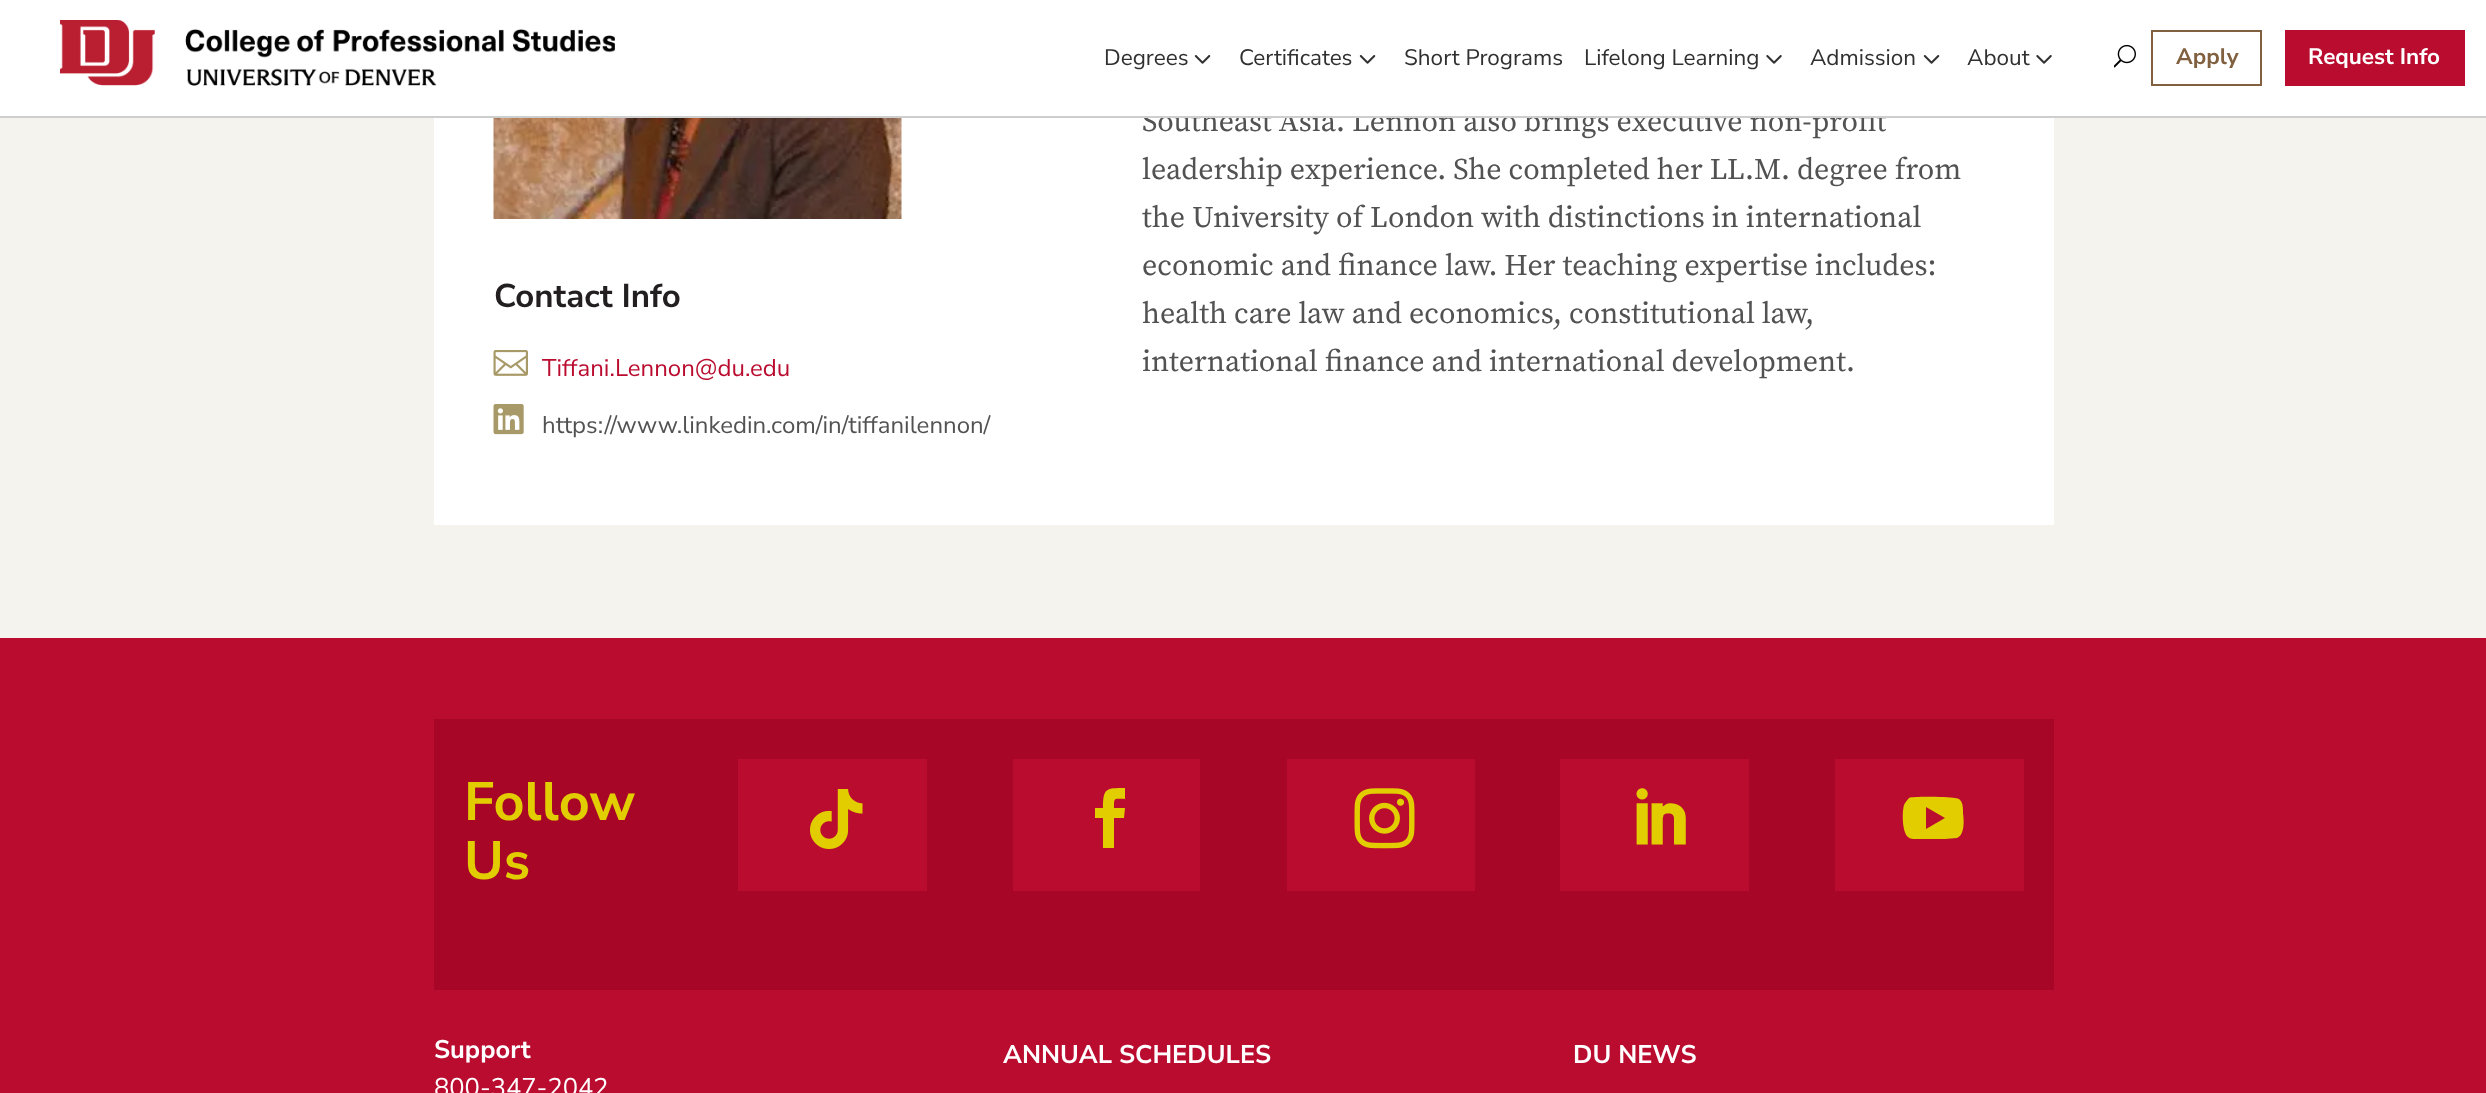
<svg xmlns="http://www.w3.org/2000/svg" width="2486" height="1093">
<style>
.a{font:bold 33px Nunito Sans;fill:#231f20}
.b{font:24px Nunito Sans;fill:#ba0c2f}
.c{font:24px Nunito Sans;fill:#525252}
.d{font:30px Source Serif Pro;fill:#525252}
.e{font:22.5px Nunito Sans;fill:#303030}
.f{font:bold 22.5px Nunito Sans;fill:#fff}
.g{font:bold 22.5px Nunito Sans;fill:#816040}
.h{font:bold 54px Nunito Sans;fill:#e1cd00}
.i{font:bold 25.5px Nunito Sans;fill:#fff}
.j{font:25.5px Nunito Sans;fill:#fff}
</style>
<rect width="100%" height="100%" fill="#f5f3ee"/>
<path fill="#fff" d="M434 118h1620v407H434z"/>
<image href="5.png" x="493" y="118" width="409" height="101"/>
<image href="6.png" x="493" y="350" width="35" height="26"/>
<image href="7.png" x="493" y="404" width="31" height="31"/>
<path fill="#ba0c2f" d="M0 638h2486v455H0z"/>
<path fill="#a80627" d="M434 719h1620v271H434z"/>
<path fill="#ba0c2f" d="M738 759h189v132H738z"/>
<image href="8.png" x="810" y="789" width="53" height="60"/>
<path fill="#ba0c2f" d="M1013 759h187v132H1013z"/>
<path fill="#e1cd00" d="M1103 848h11v-30h10l1-10h-11c0-11 0-9 11-9v-11c-19 0-22 0-22 20h-8v10h8z"/>
<path fill="#ba0c2f" d="M1287 759h188v132H1287z"/>
<image href="9.png" x="1354" y="788" width="61" height="61"/>
<path fill="#ba0c2f" d="M1560 759h189v132H1560z"/>
<image href="10.png" x="1636" y="788" width="50" height="57"/>
<path fill="#ba0c2f" d="M1835 759h189v132H1835z"/>
<path fill="#e1cd00" d="M1955 798c-7-1-40-2-46 0c-2 2-4 5-5 7c-2 7-2 27 4 32c2 2 5 2 8 2h29l12-1c8-3 7-18 6-25c0-6 0-15-8-15zm-29 31v-22l19 11z"/>
<text class="a" x="494" y="307">Contact Info</text>
<text class="b" x="542" y="376">Tiffani.Lennon@du.edu</text>
<text class="c" x="542" y="433">https://www.linkedin.com/in/tiffanilennon/</text>
<text class="d" x="1142" y="131">Southeast Asia. Lennon also brings executive non-profit</text>
<path fill="#fff" d="M0 0h2486v116H0z"/>
<image href="3.png" x="2036" y="55" width="16" height="9"/>
<text class="e" x="1967" y="65">About</text>
<image href="2.png" x="1923" y="55" width="17" height="9"/>
<text class="e" x="1810" y="65">Admission</text>
<image href="3.png" x="1766" y="55" width="16" height="9"/>
<text class="e" x="1584" y="65">Lifelong Learning</text>
<text class="e" x="1404" y="65">Short Programs</text>
<image href="2.png" x="1359" y="55" width="17" height="9"/>
<text class="e" x="1239" y="65">Certificates</text>
<image href="2.png" x="1194" y="55" width="17" height="9"/>
<text class="e" x="1104" y="65">Degrees</text>
<image href="1.png" x="60" y="20" width="555" height="66"/>
<path fill="#ba0c2f" d="M2285 30h180v56H2285z"/>
<text class="f" x="2308" y="64">Request Info</text>
<path fill="none" stroke="#816040" stroke-width="2" d="M2152 31h109v54H2152z"/>
<text class="g" x="2176" y="64">Apply</text>
<image href="4.png" x="2114" y="44" width="22" height="24"/>
<path fill="#cecece" d="M0 116h2486v2H0z"/>
<text class="d" x="1142" y="179">leadership experience. She completed her LL.M. degree from</text>
<text class="d" x="1142" y="227">the University of London with distinctions in international</text>
<text class="d" x="1142" y="275">economic and finance law. Her teaching expertise includes:</text>
<text class="d" x="1142" y="323">health care law and economics, constitutional law,</text>
<text class="d" x="1142" y="371">international finance and international development.</text>
<text class="h" x="464" y="820">Follow</text>
<text class="h" x="464" y="879">Us</text>
<text class="i" x="434" y="1058">Support</text>
<text class="j" x="434" y="1096">800-347-2042</text>
<text class="i" x="1003" y="1063">ANNUAL SCHEDULES</text>
<text class="i" x="1573" y="1063">DU NEWS</text>
</svg>
